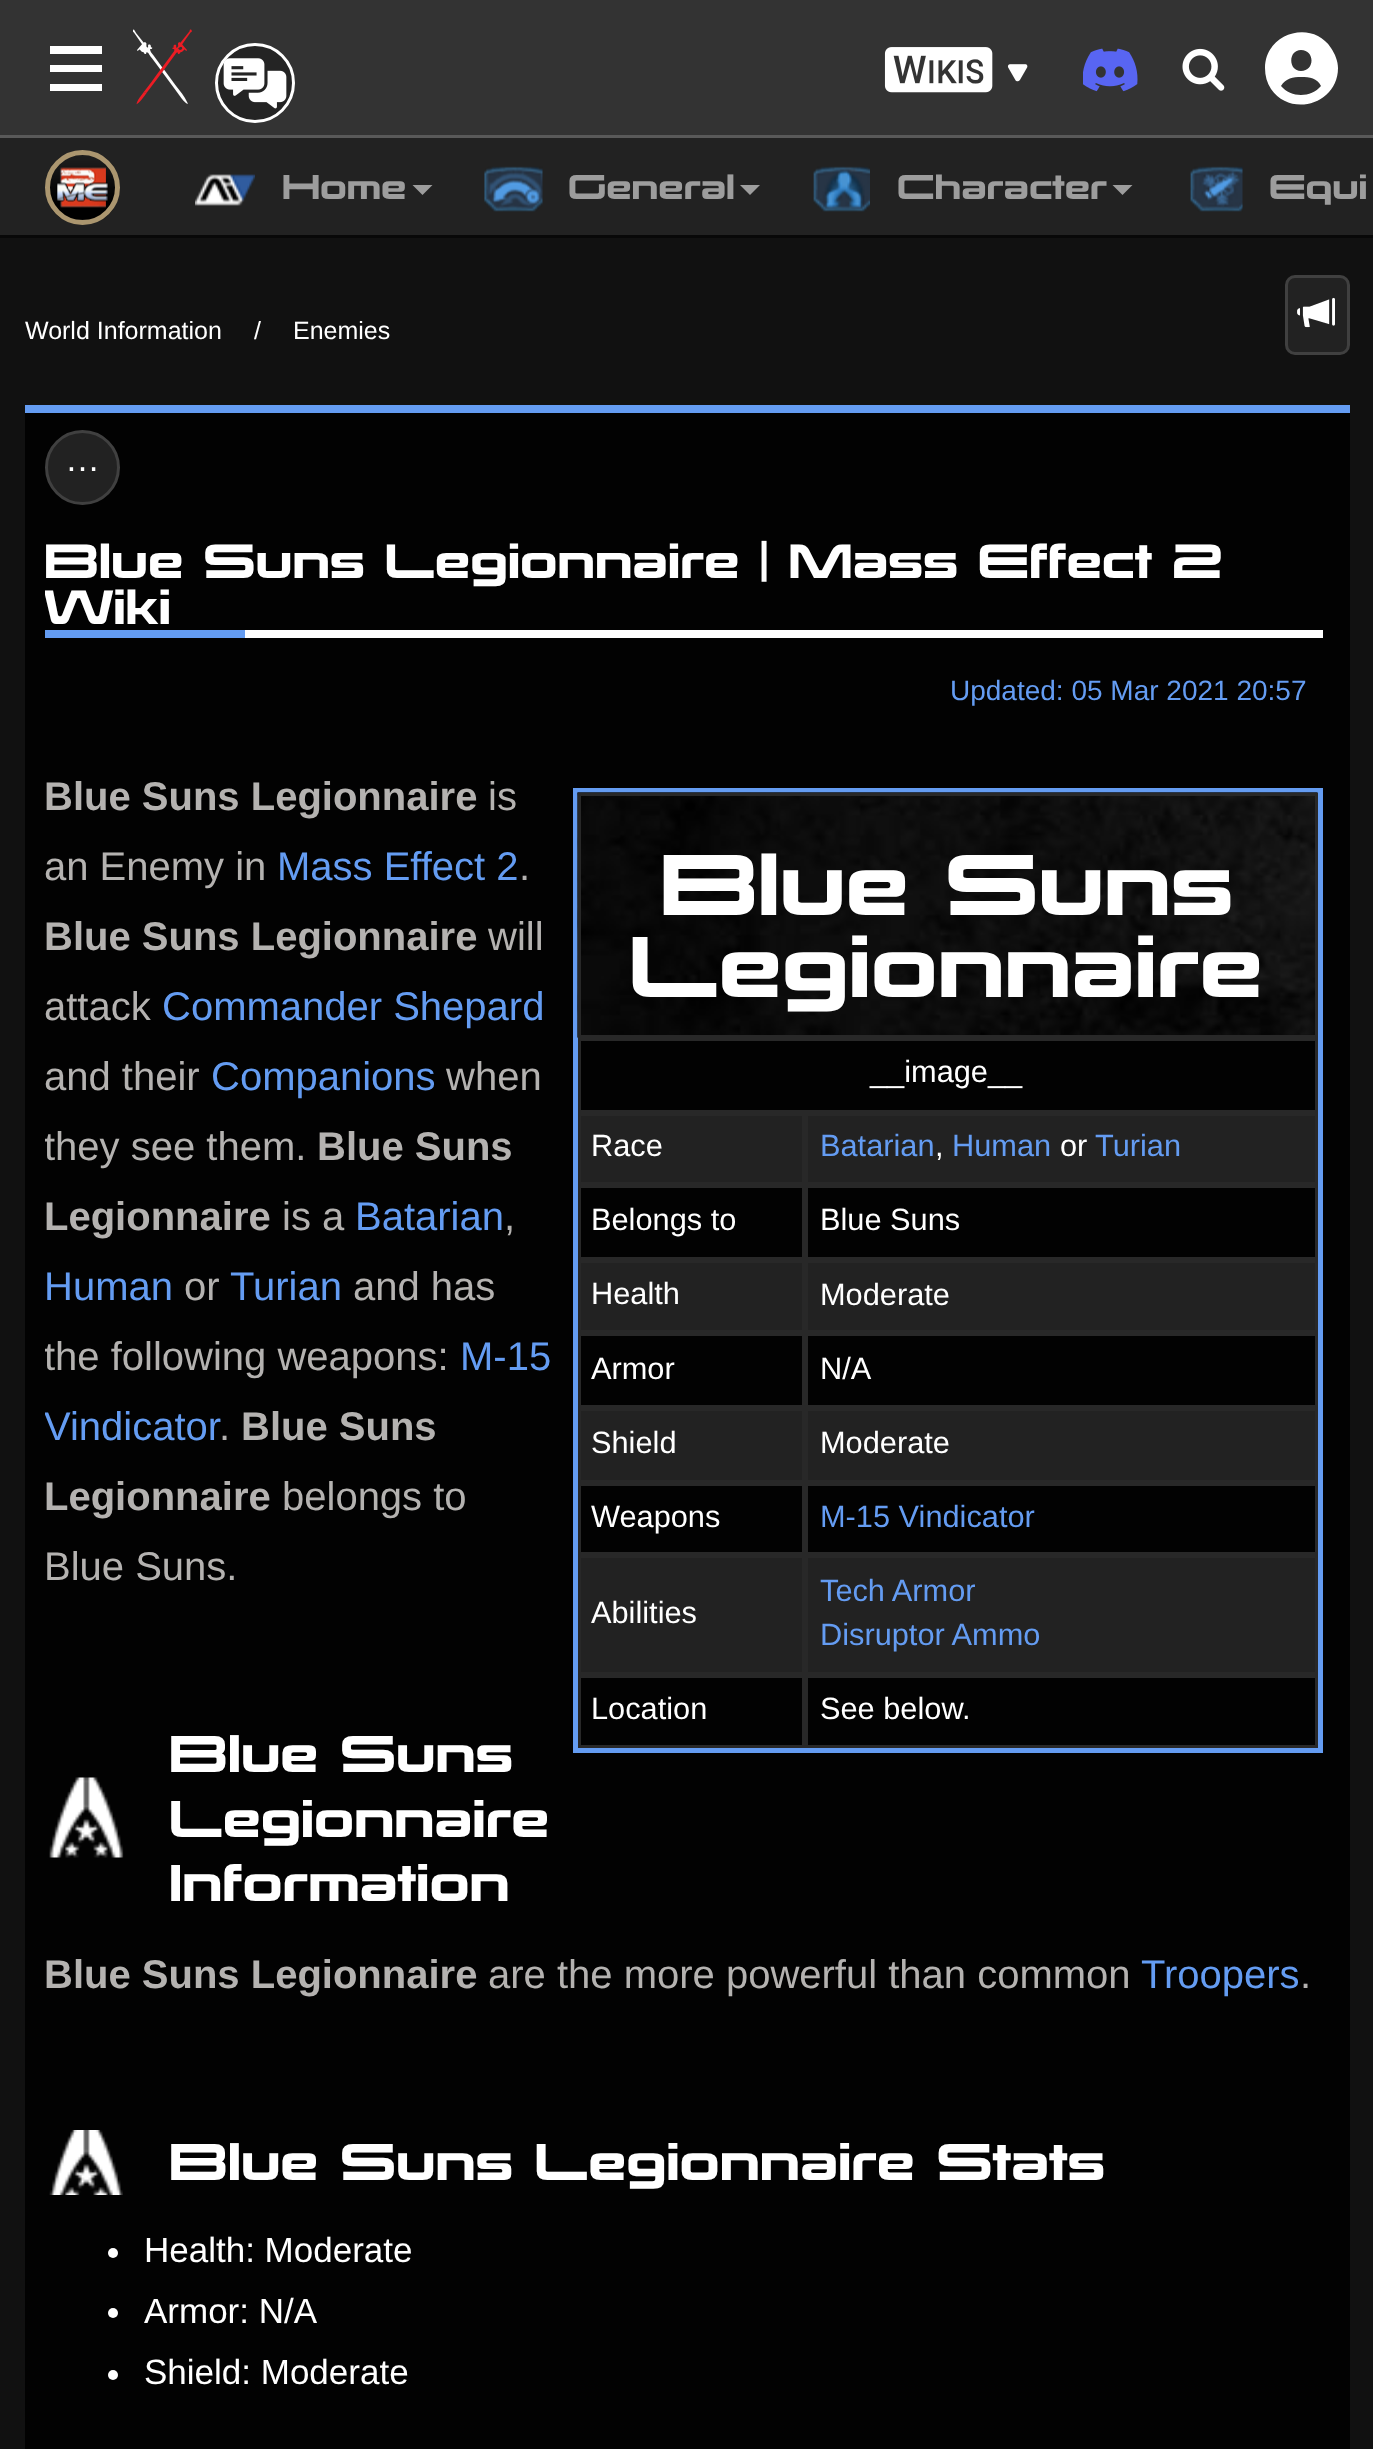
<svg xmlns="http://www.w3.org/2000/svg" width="1373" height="2449">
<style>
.a{font:30px 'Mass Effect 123';fill:#9d9d9d}
.b{font:25px Liberation Sans;fill:#fff}
.c{font:35px Liberation Sans;fill:#fff}
.d{font:42px 'Mass Effect 123';fill:#fff}
.e{font:28px Liberation Sans;fill:#649cf2}
.f{font:bold 40px Liberation Sans;fill:#b4b2b0}
.g{font:40px Liberation Sans;fill:#b4b2b0}
.h{font:40px Liberation Sans;fill:#649cf2}
.i{font:75px 'Mass Effect 123';fill:#fff}
.j{font:30.75px Liberation Sans;fill:#fff}
.k{font:30.75px Liberation Sans;fill:#649cf2}
.l{font:45px 'Mass Effect 123';fill:#fff}
</style>
<defs>
<clipPath id="clip1"><path d="M45 488h1288v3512H45z"/></clipPath>
</defs>
<rect width="100%" height="100%" fill="#111"/>
<path fill="#333" d="M0 0h1373v135H0z"/>
<path fill="#595959" d="M0 135h1373v3H0z"/>
<path fill="#fff" d="M50 46h52v8h-52zm0 19h52v7h-52zm52 19v7h-52v-7z"/>
<image href="1.png" x="133" y="29" width="59" height="76"/>
<circle fill="#242424" stroke="#fff" stroke-width="3" cx="255" cy="83" r="38.5"/>
<image href="2.png" x="223" y="58" width="64" height="51"/>
<image href="3.png" x="884" y="47" width="144" height="46"/>
<image href="4.png" x="1083" y="48" width="55" height="44"/>
<image href="5.png" x="1182" y="48" width="43" height="43"/>
<path fill="#fff" d="M1321 86c-4-8-11-9-20-9c-8 0-15 1-20 9c10 12 30 12 40 0zm-56-18c0-35 47-49 66-20c4 6 7 13 7 20c0 36-47 50-67 21c-4-6-6-13-6-21zm36 3c14 0 14-21 0-21c-13 0-13 21 0 21z"/>
<path fill="#222" d="M0 138h1373v97H0z"/>
<path fill="#080808" d="M0 235h1373v3H0z"/>
<image href="6.png" x="50" y="154" width="65" height="66"/>
<circle fill="none" stroke="#ab966f" stroke-width="5" cx="82.5" cy="187.5" r="35"/>
<image href="7.png" x="195" y="174" width="60" height="32"/>
<path fill="#9d9d9d" d="M412.5 185h20l-10 10z"/>
<image href="8.png" x="484" y="166" width="59" height="46"/>
<path fill="#9d9d9d" d="M740 185h20l-10 10z"/>
<image href="9.png" x="813" y="166" width="57" height="46"/>
<path fill="#9d9d9d" d="M1112.5 185h20l-10 10z"/>
<image href="10.png" x="1190" y="166" width="53" height="46"/>
<rect fill="#222" stroke="#404040" stroke-width="3" x="1286.5" y="276.5" width="62" height="77" rx="8.5"/>
<image href="11.png" x="1297" y="297" width="38" height="31"/>
<path fill="#020202" d="M25 413h1325v2036H25z"/>
<circle fill="#222" stroke="#404040" stroke-width="3" cx="82.5" cy="467.5" r="36"/>
<path fill="#649cf2" d="M25 405h1325v8H25z"/>
<path fill="#fff" d="M245 630h1078v8H245z"/>
<path fill="#649cf2" d="M45 630h200v8H45z"/>
<path fill="none" stroke="#649cf2" stroke-width="5" d="M575.5 790.5h745v960H575.5z"/>
<image href="12.png" x="577" y="792" width="741" height="246"/>
<path fill="none" stroke="#282828" stroke-width="3" d="M579.5 794.5h737v242H579.5z"/>
<path fill="none" stroke="#282828" stroke-width="3" d="M579.5 1039.5h737v72H579.5z"/>
<path fill="#222" d="M581 1116h734v66H581z"/>
<path fill="none" stroke="#282828" stroke-width="3" d="M579.5 1114.5h224v69H579.5z"/>
<path fill="none" stroke="#282828" stroke-width="3" d="M806.5 1114.5h510v69H806.5z"/>
<path fill="none" stroke="#282828" stroke-width="3" d="M579.5 1186.5h224v72H579.5z"/>
<path fill="none" stroke="#282828" stroke-width="3" d="M806.5 1186.5h510v72H806.5z"/>
<path fill="#222" d="M581 1263h734v67H581z"/>
<path fill="none" stroke="#282828" stroke-width="3" d="M579.5 1261.5h224v70H579.5z"/>
<path fill="none" stroke="#282828" stroke-width="3" d="M806.5 1261.5h510v70H806.5z"/>
<path fill="none" stroke="#282828" stroke-width="3" d="M579.5 1334.5h224v72H579.5z"/>
<path fill="none" stroke="#282828" stroke-width="3" d="M806.5 1334.5h510v72H806.5z"/>
<path fill="#222" d="M581 1411h734v69H581z"/>
<path fill="none" stroke="#282828" stroke-width="3" d="M579.5 1409.5h224v72H579.5z"/>
<path fill="none" stroke="#282828" stroke-width="3" d="M806.5 1409.5h510v72H806.5z"/>
<path fill="none" stroke="#282828" stroke-width="3" d="M579.5 1484.5h224v69H579.5z"/>
<path fill="none" stroke="#282828" stroke-width="3" d="M806.5 1484.5h510v69H806.5z"/>
<path fill="#222" d="M581 1558h734v114H581z"/>
<path fill="none" stroke="#282828" stroke-width="3" d="M579.5 1556.5h224v117H579.5z"/>
<path fill="none" stroke="#282828" stroke-width="3" d="M806.5 1556.5h510v117H806.5z"/>
<path fill="none" stroke="#282828" stroke-width="3" d="M579.5 1676.5h224v70H579.5z"/>
<path fill="none" stroke="#282828" stroke-width="3" d="M806.5 1676.5h510v70H806.5z"/>
<image href="13.png" x="49" y="1777" width="75" height="81"/>
<image href="14.png" x="49" y="2130" width="74" height="65"/>
<circle fill="#fff" cx="113" cy="2253" r="5"/>
<circle fill="#fff" cx="113" cy="2313" r="5"/>
<circle fill="#fff" cx="113" cy="2375" r="5"/>
<text class="a" x="282" y="199">Home</text>
<text class="a" x="568" y="199">General</text>
<text class="a" x="897" y="199">Character</text>
<text class="a" x="1269" y="199">Equi</text>
<text class="b" x="25" y="339">World Information</text>
<text class="b" x="254" y="339">/</text>
<text class="b" x="293" y="339">Enemies</text>
<text class="c" x="65" y="471">…</text>
<text class="d" x="44" y="578" word-spacing="-0.25">Blue Suns Legionnaire | Mass Effect 2</text>
<g clip-path="url(#clip1)">
<text class="d" x="44" y="624">Wiki</text>
</g>
<text class="e" x="950" y="700">Updated: 05 Mar 2021 20:57</text>
<text class="f" x="44" y="810">Blue Suns Legionnaire</text>
<text class="g" x="488" y="810">is</text>
<text class="g" x="44" y="880">an Enemy in</text>
<text class="h" x="277" y="880">Mass Effect 2</text>
<text class="g" x="519" y="880">.</text>
<text class="f" x="44" y="950">Blue Suns Legionnaire</text>
<text class="g" x="488" y="950">will</text>
<text class="g" x="44" y="1020">attack</text>
<text class="h" x="162" y="1020">Commander Shepard</text>
<text class="g" x="44" y="1090">and their</text>
<text class="h" x="211" y="1090">Companions</text>
<text class="g" x="446" y="1090">when</text>
<g clip-path="url(#clip1)">
<text class="g" x="44" y="1160">they see them.</text>
</g>
<text class="f" x="317" y="1160">Blue Suns</text>
<text class="f" x="44" y="1230">Legionnaire</text>
<text class="g" x="282" y="1230">is a</text>
<text class="h" x="355" y="1230">Batarian</text>
<text class="g" x="504" y="1230">,</text>
<text class="h" x="44" y="1300">Human</text>
<text class="g" x="184" y="1300">or</text>
<text class="h" x="230" y="1300">Turian</text>
<text class="g" x="353" y="1300">and has</text>
<g clip-path="url(#clip1)">
<text class="g" x="44" y="1370">the following weapons:</text>
</g>
<text class="h" x="460" y="1370">M-15</text>
<g clip-path="url(#clip1)">
<text class="h" x="44" y="1440">Vindicator</text>
</g>
<text class="g" x="219" y="1440">.</text>
<text class="f" x="241" y="1440">Blue Suns</text>
<text class="f" x="44" y="1510">Legionnaire</text>
<text class="g" x="282" y="1510">belongs to</text>
<text class="g" x="44" y="1580">Blue Suns.</text>
<text class="i" x="660" y="915">Blue Suns</text>
<text class="i" x="629" y="997">Legionnaire</text>
<text class="j" x="870" y="1082">__image__</text>
<text class="j" x="591" y="1156">Race</text>
<text class="k" x="820" y="1156">Batarian</text>
<text class="j" x="935" y="1156">,</text>
<text class="k" x="952" y="1156">Human</text>
<text class="j" x="1060" y="1156">or</text>
<text class="k" x="1095" y="1156">Turian</text>
<text class="j" x="591" y="1230">Belongs to</text>
<text class="j" x="820" y="1230">Blue Suns</text>
<text class="j" x="591" y="1304">Health</text>
<text class="j" x="820" y="1305">Moderate</text>
<text class="j" x="591" y="1379">Armor</text>
<text class="j" x="820" y="1379">N/A</text>
<text class="j" x="591" y="1453">Shield</text>
<text class="j" x="820" y="1453">Moderate</text>
<text class="j" x="591" y="1527">Weapons</text>
<text class="k" x="820" y="1527">M-15 Vindicator</text>
<text class="j" x="591" y="1623">Abilities</text>
<text class="k" x="820" y="1601">Tech Armor</text>
<text class="k" x="820" y="1645">Disruptor Ammo</text>
<text class="j" x="591" y="1719">Location</text>
<text class="j" x="820" y="1719">See below.</text>
<text class="l" x="169" y="1772">Blue Suns</text>
<text class="l" x="169" y="1837">Legionnaire</text>
<text class="l" x="169" y="1901">Information</text>
<text class="f" x="44" y="1988">Blue Suns Legionnaire</text>
<text class="g" x="488" y="1988">are the more powerful than common</text>
<text class="h" x="1141" y="1988">Troopers</text>
<text class="g" x="1300" y="1988">.</text>
<text class="l" x="169" y="2180">Blue Suns Legionnaire Stats</text>
<text class="c" x="144" y="2262">Health: Moderate</text>
<text class="c" x="144" y="2323">Armor: N/A</text>
<text class="c" x="144" y="2384">Shield: Moderate</text>
</svg>
